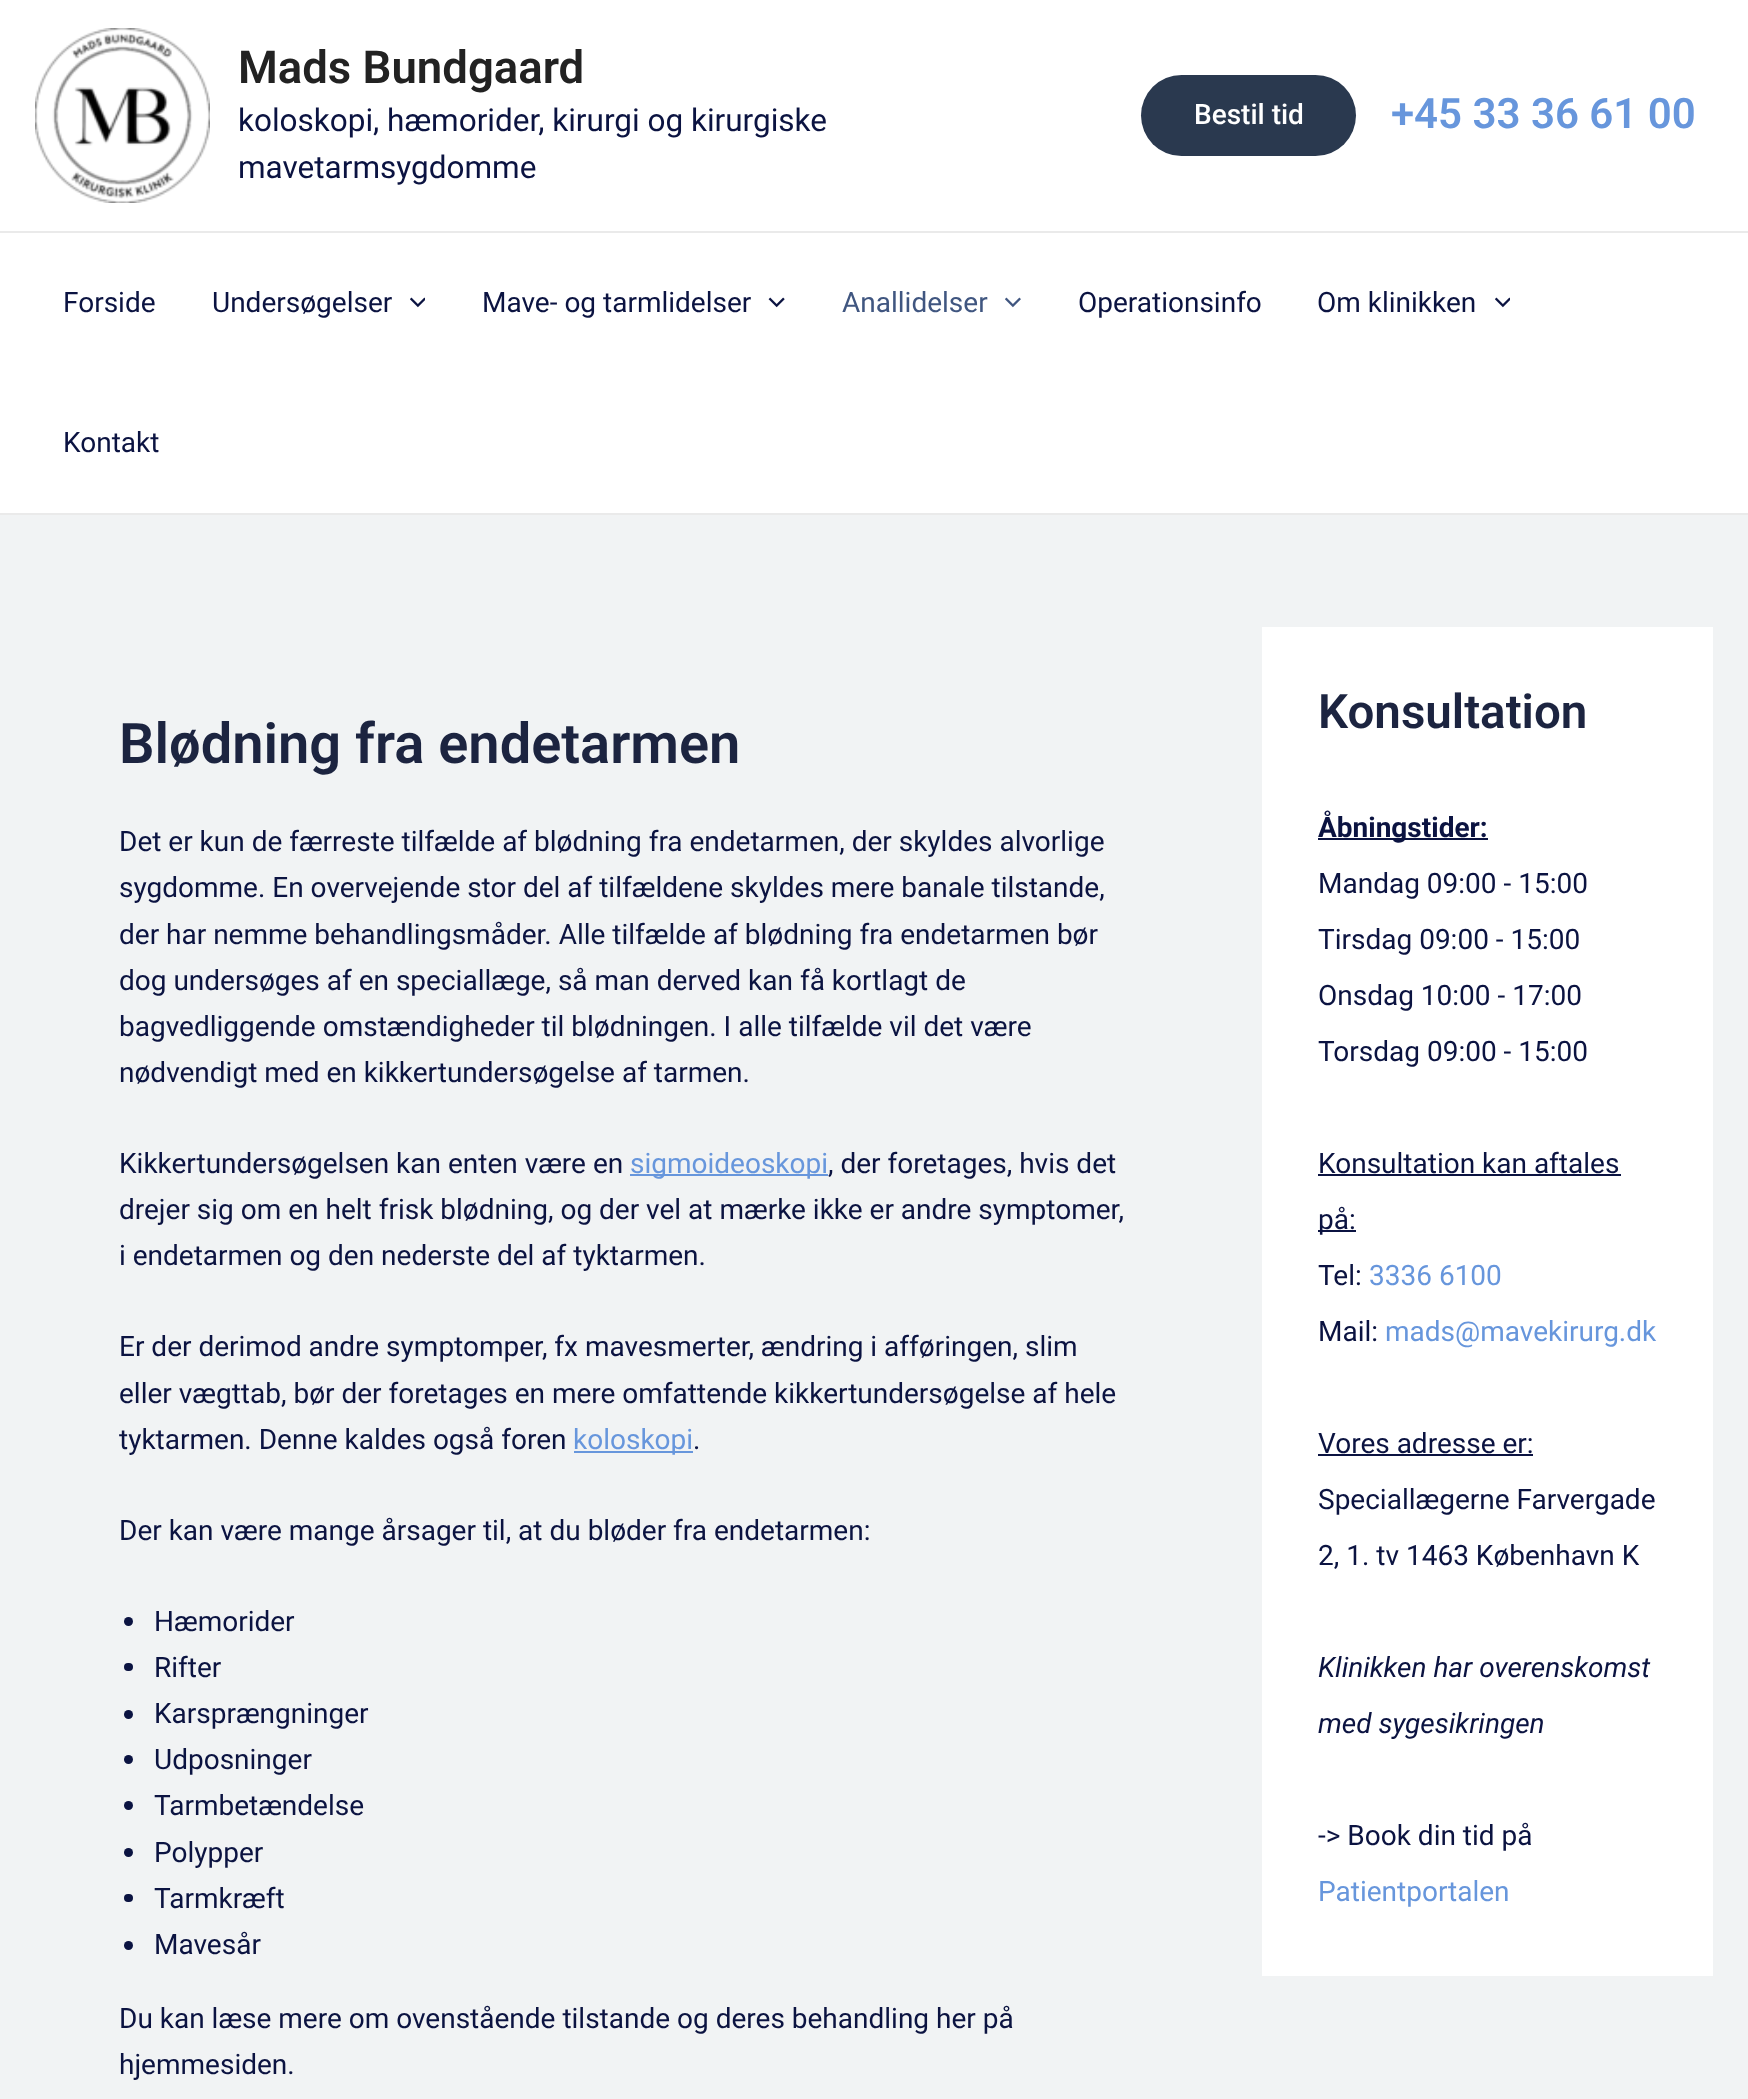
<svg xmlns="http://www.w3.org/2000/svg" width="1748" height="2099">
<style>
.a{font:600 45.5px Roboto;fill:#222}
.b{font:31.5px Roboto;fill:#0b1341}
.c{font:500 28px Roboto;fill:#fff}
.d{font:600 42px Roboto;fill:#6796dc}
.e{font:28px Roboto;fill:#0b1341}
.f{font:28px Roboto;fill:#405680}
.g{font:600 56px Roboto;fill:#1c2440}
.h{font:28px Roboto;fill:#6796dc}
.i{font:600 47.5px Roboto;fill:#1c2440}
.j{font:bold 28px Roboto;fill:#0b1341}
.k{font:italic 28px Roboto;fill:#0b1341}
</style>
<rect width="100%" height="100%" fill="#f1f3f4"/>
<path fill="#fff" d="M0 0h1748v231H0z"/>
<path fill="#eaeaea" d="M0 231h1748v2H0z"/>
<image href="1.png" x="35" y="28" width="175" height="175"/>
<rect fill="#2a394f" x="1141" y="75" width="215" height="81" rx="40.5"/>
<path fill="#fff" d="M0 233h1748v280H0z"/>
<path fill="#eaeaea" d="M0 513h1748v2H0z"/>
<image href="2.png" x="410" y="297" width="15" height="11"/>
<image href="3.png" x="768" y="297" width="17" height="11"/>
<image href="4.png" x="1005" y="297" width="16" height="11"/>
<image href="2.png" x="1495" y="297" width="15" height="11"/>
<path fill="#6796dc" d="M630 1174h198v2H630z"/>
<path fill="#6796dc" d="M574 1451h119v2H574z"/>
<circle fill="#0b1341" cx="128.5" cy="1621.5" r="4.5"/>
<rect fill="#0b1341" x="124" y="1663" width="9" height="8" rx="4"/>
<circle fill="#0b1341" cx="128.5" cy="1714.5" r="4.5"/>
<circle fill="#0b1341" cx="128.5" cy="1759.5" r="4.5"/>
<circle fill="#0b1341" cx="128.5" cy="1805.5" r="4.5"/>
<circle fill="#0b1341" cx="128.5" cy="1852.5" r="4.5"/>
<rect fill="#0b1341" x="124" y="1894" width="9" height="8" rx="4"/>
<circle fill="#0b1341" cx="128.5" cy="1945.5" r="4.5"/>
<path fill="#fff" d="M1262 627h451v1349H1262z"/>
<path fill="#0b1341" d="M1318 838h170v2H1318z"/>
<path fill="#0b1341" d="M1318 1174h303v2H1318z"/>
<path fill="#0b1341" d="M1318 1230h38v2H1318z"/>
<path fill="#0b1341" d="M1318 1454h215v2H1318z"/>
<text class="a" x="238" y="83">Mads Bundgaard</text>
<text class="b" x="238" y="131">koloskopi, hæmorider, kirurgi og kirurgiske</text>
<text class="b" x="238" y="178">mavetarmsygdomme</text>
<text class="c" x="1194" y="124">Bestil tid</text>
<text class="d" x="1391" y="128">+45 33 36 61 00</text>
<text class="e" x="63" y="312">Forside</text>
<text class="e" x="212" y="312">Undersøgelser</text>
<text class="e" x="482" y="312">Mave- og tarmlidelser</text>
<text class="f" x="842" y="312">Anallidelser</text>
<text class="e" x="1078" y="312">Operationsinfo</text>
<text class="e" x="1317" y="312">Om klinikken</text>
<text class="e" x="63" y="452">Kontakt</text>
<text class="g" x="119" y="763">Blødning fra endetarmen</text>
<text class="e" x="119" y="851">Det er kun de færreste tilfælde af blødning fra endetarmen, der skyldes alvorlige</text>
<text class="e" x="119" y="897">sygdomme. En overvejende stor del af tilfældene skyldes mere banale tilstande,</text>
<text class="e" x="119" y="944">der har nemme behandlingsmåder. Alle tilfælde af blødning fra endetarmen bør</text>
<text class="e" x="119" y="990">dog undersøges af en speciallæge, så man derved kan få kortlagt de</text>
<text class="e" x="119" y="1036">bagvedliggende omstændigheder til blødningen. I alle tilfælde vil det være</text>
<text class="e" x="119" y="1082">nødvendigt med en kikkertundersøgelse af tarmen.</text>
<text class="e" x="119" y="1173">Kikkertundersøgelsen kan enten være en</text>
<text class="h" x="630" y="1173">sigmoideoskopi</text>
<text class="e" x="828" y="1173">, der foretages, hvis det</text>
<text class="e" x="119" y="1219">drejer sig om en helt frisk blødning, og der vel at mærke ikke er andre symptomer,</text>
<text class="e" x="119" y="1265">i endetarmen og den nederste del af tyktarmen.</text>
<text class="e" x="119" y="1356">Er der derimod andre symptomper, fx mavesmerter, ændring i afføringen, slim</text>
<text class="e" x="119" y="1403">eller vægttab, bør der foretages en mere omfattende kikkertundersøgelse af hele</text>
<text class="e" x="119" y="1449">tyktarmen. Denne kaldes også foren</text>
<text class="h" x="573" y="1449">koloskopi</text>
<text class="e" x="693" y="1449">.</text>
<text class="e" x="119" y="1540">Der kan være mange årsager til, at du bløder fra endetarmen:</text>
<text class="e" x="154" y="1631">Hæmorider</text>
<text class="e" x="154" y="1677">Rifter</text>
<text class="e" x="154" y="1723">Karsprængninger</text>
<text class="e" x="154" y="1769">Udposninger</text>
<text class="e" x="154" y="1815">Tarmbetændelse</text>
<text class="e" x="154" y="1862">Polypper</text>
<text class="e" x="154" y="1908">Tarmkræft</text>
<text class="e" x="154" y="1954">Mavesår</text>
<text class="e" x="119" y="2028">Du kan læse mere om ovenstående tilstande og deres behandling her på</text>
<text class="e" x="119" y="2074">hjemmesiden.</text>
<text class="i" x="1318" y="728">Konsultation</text>
<text class="j" x="1318" y="837">Åbningstider:</text>
<text class="e" x="1318" y="893">Mandag 09:00 - 15:00</text>
<text class="e" x="1318" y="949">Tirsdag 09:00 - 15:00</text>
<text class="e" x="1318" y="1005">Onsdag 10:00 - 17:00</text>
<text class="e" x="1318" y="1061">Torsdag 09:00 - 15:00</text>
<text class="e" x="1318" y="1173">Konsultation kan aftales</text>
<text class="e" x="1318" y="1229">på:</text>
<text class="e" x="1318" y="1285">Tel:</text>
<text class="h" x="1369" y="1285">3336 6100</text>
<text class="e" x="1318" y="1341">Mail:</text>
<text class="h" x="1385" y="1341">mads@mavekirurg.dk</text>
<text class="e" x="1318" y="1453">Vores adresse er:</text>
<text class="e" x="1318" y="1509">Speciallægerne Farvergade</text>
<text class="e" x="1318" y="1565">2, 1. tv 1463 København K</text>
<text class="k" x="1318" y="1677">Klinikken har overenskomst</text>
<text class="k" x="1318" y="1733">med sygesikringen</text>
<text class="e" x="1318" y="1845">-&gt; Book din tid på</text>
<text class="h" x="1318" y="1901">Patientportalen</text>
</svg>
